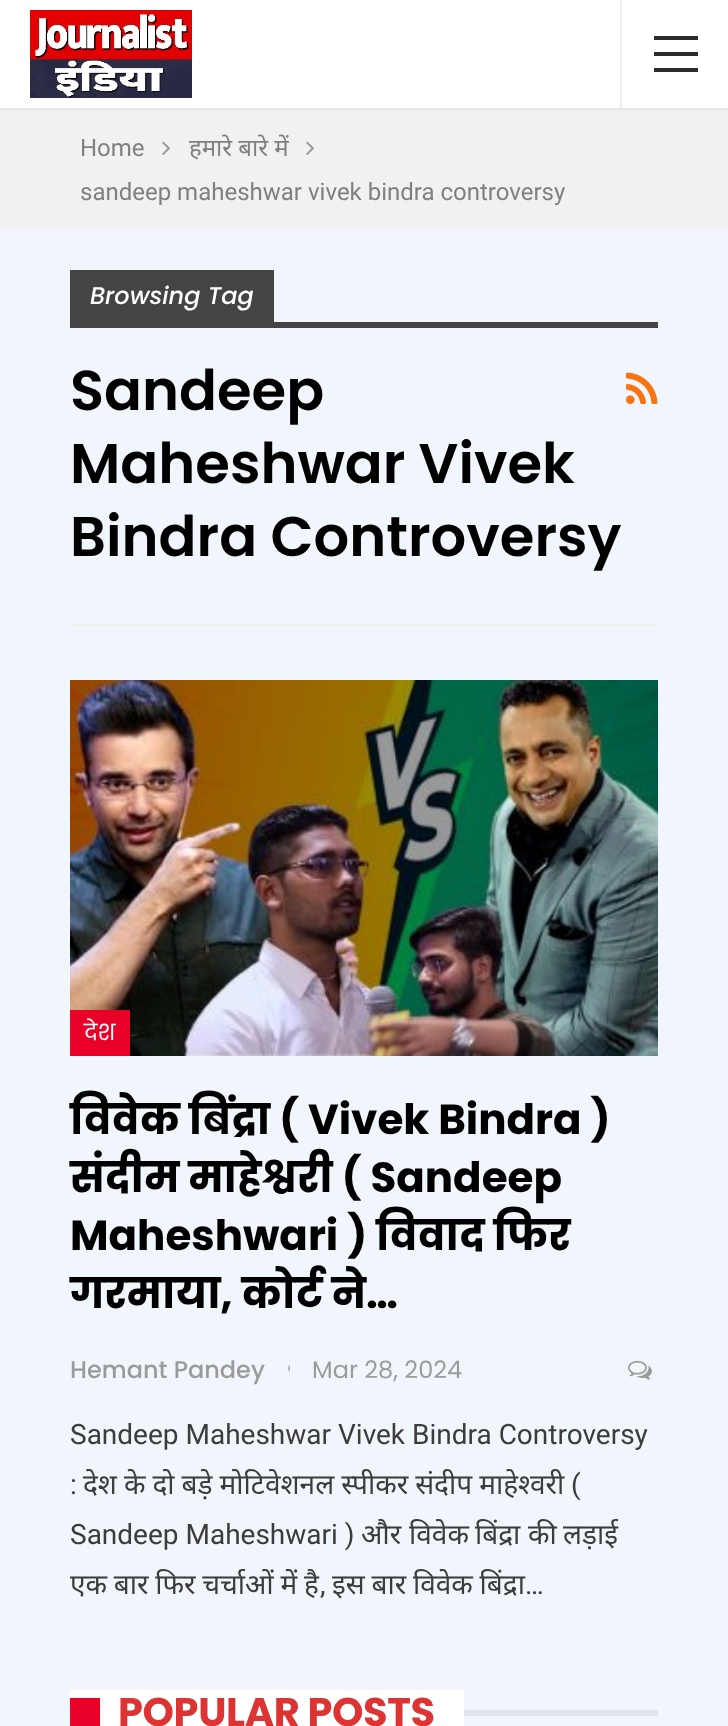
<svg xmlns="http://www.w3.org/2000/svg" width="728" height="1726">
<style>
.a{font:24px Roboto;fill:#808080}
.b{font:24px Noto Sans;fill:#808080}
.c{font:italic 500 24px Poppins;fill:#fff}
.d{font:600 56px Poppins;fill:#000}
.e{font:22px Poppins;fill:#fff}
.f{font:bold 42px Poppins;fill:#000}
.g{font:500 24px Poppins;fill:#9b9b9b}
.h{font:24px Poppins;fill:#9b9b9b}
.i{font:28px Roboto;fill:#3c3c3c}
.j{font:28px Noto Sans;fill:#3c3c3c}
.k{font:bold 40px Poppins;letter-spacing:-0.4px;fill:#d33}
</style>
<rect width="100%" height="100%" fill="#f1f6fc"/>
<path fill="#fff" d="M0 0h728v108H0z"/>
<path fill="#e5e5e5" d="M0 108h728v2H0z"/>
<image href="1.png" x="30" y="10" width="162" height="88"/>
<path fill="#ededed" d="M620 0h2v108H620z"/>
<path fill="#2c2c2c" d="M654 52h44v4H654z"/>
<path fill="#2c2c2c" d="M654 36h44v4H654z"/>
<path fill="#2c2c2c" d="M654 68h44v4H654z"/>
<path fill="#f1f1f1" d="M0 110h728v120H0z"/>
<image href="2.png" x="162" y="141" width="8" height="14"/>
<image href="2.png" x="306" y="141" width="8" height="14"/>
<path fill="#f0f0f0" d="M70 624h588v2H70z"/>
<path fill="#444" d="M70 270h204v52H70z"/>
<path fill="#444" d="M70 322h588v6H70z"/>
<image href="3.png" x="626" y="372" width="32" height="32"/>
<image href="4.png" x="70" y="680" width="588" height="376"/>
<path fill="#e80028" d="M70 1010h60v46H70z"/>
<image href="5.png" x="288" y="1365" width="2" height="7"/>
<image href="6.png" x="628" y="1360" width="24" height="20"/>
<path fill="#fff" d="M70 1690h394v36H70z"/>
<path fill="#e80028" d="M70 1698h30v28H70z"/>
<path fill="#e0e5ea" d="M464 1710h194v6H464z"/>
<text class="a" x="80" y="156">Home</text>
<text class="b" x="189" y="156">हमारे बारे में</text>
<text class="a" x="80" y="200">sandeep maheshwar vivek bindra controversy</text>
<text class="c" x="90" y="304">Browsing Tag</text>
<text class="d" x="70" y="410">Sandeep</text>
<text class="d" x="70" y="483">Maheshwar Vivek</text>
<text class="d" x="70" y="556">Bindra Controversy</text>
<text class="e" x="84" y="1040">देश</text>
<text class="f" x="70" y="1134">विवेक बिंद्रा ( Vivek Bindra )</text>
<text class="f" x="70" y="1192">संदीम माहेश्वरी ( Sandeep</text>
<text class="f" x="70" y="1250">Maheshwari ) विवाद फिर</text>
<text class="f" x="70" y="1308">गरमाया, कोर्ट ने…</text>
<text class="g" x="70" y="1378">Hemant Pandey</text>
<text class="h" x="312" y="1378">Mar 28, 2024</text>
<text class="i" x="70" y="1444">Sandeep Maheshwar Vivek Bindra Controversy</text>
<text class="i" x="571" y="1494">(</text>
<text class="i" x="70" y="1494">:</text>
<text class="j" x="83" y="1494" word-spacing="-0.25">देश के दो बड़े मोटिवेशनल स्पीकर संदीप माहेश्वरी</text>
<text class="i" x="70" y="1544">Sandeep Maheshwari )</text>
<text class="j" x="361" y="1544">और</text>
<text class="j" x="409" y="1544">विवेक</text>
<text class="j" x="475" y="1544">बिंद्रा</text>
<text class="j" x="528" y="1544">की</text>
<text class="j" x="563" y="1544">लड़ाई</text>
<text class="j" x="70" y="1594" word-spacing="-0.5">एक बार फिर चर्चाओं में है</text>
<text class="i" x="320" y="1594">,</text>
<text class="j" x="332" y="1594" word-spacing="-0.5">इस बार विवेक बिंद्रा</text>
<text class="i" x="525" y="1594">…</text>
<text class="k" x="118" y="1726">POPULAR POSTS</text>
</svg>
